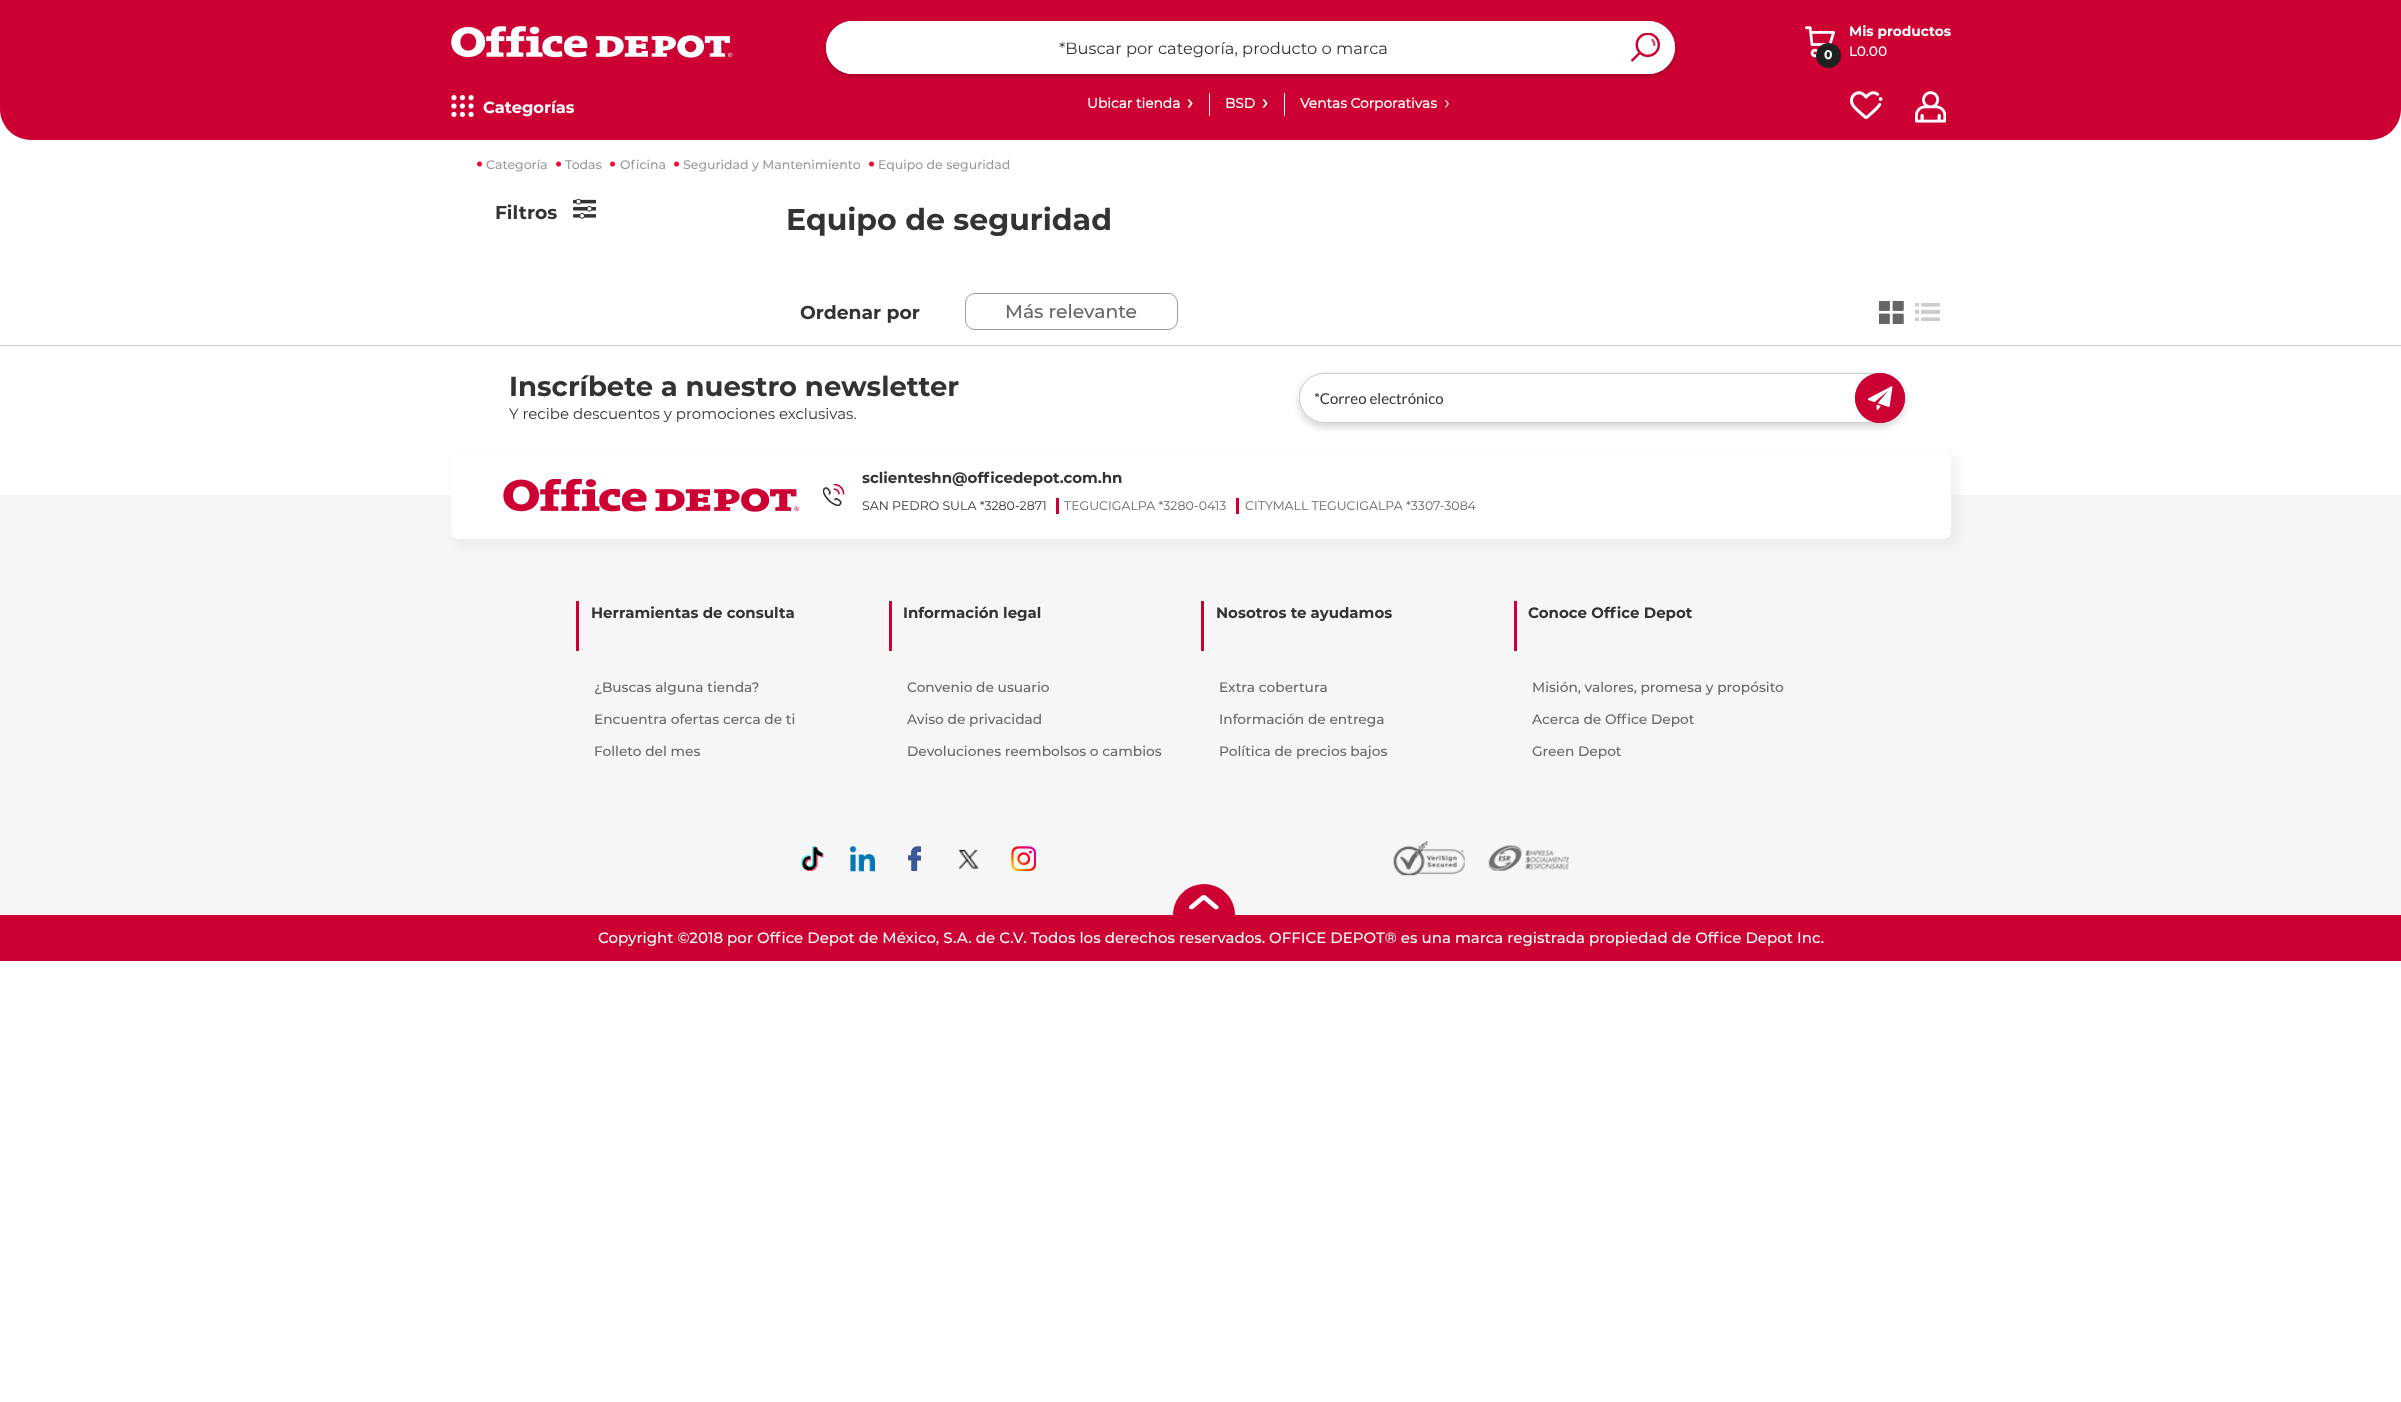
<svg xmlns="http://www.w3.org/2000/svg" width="2401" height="1402">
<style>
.a{font:bold 16.25px Montserrat;fill:#fff}
.b{font:bold 12.5px Montserrat;fill:#fff}
.c{font:bold 13.75px Montserrat;fill:#fff}
.d{font:500 13.75px Montserrat;fill:#fff}
.e{font:bold 13.75px 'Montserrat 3';fill:#fff}
.f{font:bold 20px 'Montserrat 3';fill:#fff}
.g{font:20px Montserrat;fill:#fff}
.h{font:16.25px Montserrat;fill:#333}
.i{font:bold 31px 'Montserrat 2';fill:#ff0534}
.j{font:500 12.5px Montserrat;fill:#9a9a9a}
.k{font:bold 18.75px Montserrat;fill:#333}
.l{font:bold 30px Montserrat;fill:#333}
.m{font:500 18.75px Montserrat;fill:#666}
.n{font:bold 27.5px Montserrat;fill:#333}
.o{font:15px Montserrat;fill:#333}
.p{font:15px Lato;fill:#333}
.q{font:bold 15px Montserrat;fill:#333}
.r{font:12.5px Montserrat;fill:#333}
.s{font:12.5px Montserrat;fill:#666}
.t{font:500 13.75px Montserrat;fill:#666}
.u{font:500 15px Montserrat;fill:#fff}
</style>
<defs>
<clipPath id="clip1"><path d="M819 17h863v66h-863zm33.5 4h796c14.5 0 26.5 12 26.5 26.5c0 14.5-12 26.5-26.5 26.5h-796c-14.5 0-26.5-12-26.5-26.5c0-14.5 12-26.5 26.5-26.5z" clip-rule="evenodd"/></clipPath>
</defs>
<rect width="100%" height="100%" fill="#fff"/>
<path fill="#c03" d="M0 84h2401v25c0 17-14 31-31 31h-2339c-17 0-31-14-31-31z"/>
<image href="1.png" x="451" y="95" width="23" height="22"/>
<image href="2.png" x="1850" y="91" width="33" height="28"/>
<image href="3.png" x="1915" y="91" width="31" height="32"/>
<path fill="#c03" d="M0 0h2401v84H0z"/>
<image href="4.png" x="451" y="26" width="282" height="32"/>
<image href="5.png" x="1805" y="26" width="30" height="32"/>
<circle fill="#202020" cx="1828.5" cy="55.5" r="12.5"/>
<path fill="#fff" d="M1209 93h1v23H1209z"/>
<path fill="#fff" d="M1284 93h1v23H1284z"/>
<rect fill="#fff" x="826" y="21" width="849" height="53" rx="26.5"/>
<g clip-path="url(#clip1)">
<rect fill="#00000036" filter="blur(2px)" x="826" y="24" width="849" height="52" rx="26"/>
</g>
<rect fill="#fff" stroke="#fff" x="826.5" y="21.5" width="789" height="52" rx="26"/>
<rect fill="#fff" x="1616" y="21" width="59" height="53" rx="26.5"/>
<image href="6.png" x="1631" y="33" width="29" height="29"/>
<image href="7.png" x="573" y="199" width="23" height="20"/>
<rect fill="none" stroke="#999" x="965.5" y="293.5" width="212" height="36" rx="9.5"/>
<image href="8.png" x="1879" y="301" width="25" height="23"/>
<image href="9.png" x="1915" y="303" width="25" height="18"/>
<path fill="#ccc" d="M0 345h2401v1H0z"/>
<rect fill="#00000024" filter="blur(3px)" x="1298" y="375" width="608" height="53" rx="26.5"/>
<rect fill="#fff" stroke="#ccc" x="1299.5" y="373.5" width="605" height="49" rx="24.5"/>
<circle fill="#c03" cx="1880" cy="398" r="25"/>
<image href="10.png" x="1868" y="386" width="25" height="24"/>
<circle fill="none" stroke="#c03" cx="1880" cy="398" r="24.5"/>
<path fill="#f6f6f6" d="M0 495h2401v420H0z"/>
<rect fill="#9999991f" filter="blur(5px)" x="454" y="454" width="1505" height="92" rx="10"/>
<rect fill="#fff" x="451" y="451" width="1500" height="88" rx="8"/>
<image href="11.png" x="503" y="479" width="297" height="33"/>
<image href="12.png" x="823" y="484" width="22" height="22"/>
<path fill="#c03" d="M1056 498h3v16H1056z"/>
<path fill="#c03" d="M1236 498h3v16H1236z"/>
<path fill="#c03" d="M576 601h3v50H576z"/>
<path fill="#c03" d="M889 601h3v50H889z"/>
<path fill="#c03" d="M1201 601h3v50H1201z"/>
<path fill="#c03" d="M1514 601h3v50H1514z"/>
<image href="13.png" x="801" y="846" width="23" height="25"/>
<image href="14.png" x="850" y="846" width="25" height="26"/>
<image href="15.png" x="908" y="846" width="13" height="25"/>
<image href="16.png" x="958" y="849" width="21" height="20"/>
<image href="17.png" x="1011" y="846" width="25" height="25"/>
<image href="18.png" x="1393" y="841" width="176" height="35"/>
<path fill="#c03" d="M0 915h2401v46H0z"/>
<path fill="#c03" d="M1204 884c17 0 31 14 31 31v6h-62v-6c0-17 14-31 31-31z"/>
<image href="19.png" x="1189" y="895" width="30" height="15"/>
<text class="a" x="483" y="113">Categorías</text>
<text class="b" x="1824" y="59">0</text>
<text class="c" x="1849" y="36">Mis productos</text>
<text class="d" x="1849" y="56">L0.00</text>
<text class="e" x="1087" y="108">Ubicar tienda</text>
<text class="f" x="1187" y="109">›</text>
<text class="e" x="1225" y="108">BSD</text>
<text class="f" x="1262" y="109">›</text>
<text class="e" x="1300" y="108">Ventas Corporativas</text>
<text class="g" x="1444" y="109">›</text>
<text class="h" x="1059" y="54">*Buscar por categoría, producto o marca</text>
<text class="i" x="475" y="173">·</text>
<text class="j" x="486" y="169">Categoría</text>
<text class="i" x="554" y="173">·</text>
<text class="j" x="565" y="169">Todas</text>
<text class="i" x="608" y="173">·</text>
<text class="j" x="620" y="169">Oficina</text>
<text class="i" x="672" y="173">·</text>
<text class="j" x="683" y="169">Seguridad y Mantenimiento</text>
<text class="i" x="867" y="173">·</text>
<text class="j" x="878" y="169">Equipo de seguridad</text>
<text class="k" x="495" y="219">Filtros</text>
<text class="l" x="786" y="230">Equipo de seguridad</text>
<text class="k" x="800" y="319">Ordenar por</text>
<text class="m" x="1005" y="318">Más relevante</text>
<text class="n" x="509" y="396">Inscríbete a nuestro newsletter</text>
<text class="o" x="509" y="419">Y recibe descuentos y promociones exclusivas.</text>
<text class="p" x="1314" y="404">*Correo electrónico</text>
<text class="q" x="862" y="483">sclienteshn@officedepot.com.hn</text>
<text class="r" x="862" y="510">SAN PEDRO SULA *3280-2871</text>
<text class="s" x="1064" y="510">TEGUCIGALPA *3280-0413</text>
<text class="s" x="1245" y="510">CITYMALL TEGUCIGALPA *3307-3084</text>
<text class="q" x="591" y="618">Herramientas de consulta</text>
<text class="t" x="594" y="692">¿Buscas alguna tienda?</text>
<text class="t" x="594" y="724">Encuentra ofertas cerca de ti</text>
<text class="t" x="594" y="756">Folleto del mes</text>
<text class="q" x="903" y="618">Información legal</text>
<text class="t" x="907" y="692">Convenio de usuario</text>
<text class="t" x="907" y="724">Aviso de privacidad</text>
<text class="t" x="907" y="756">Devoluciones reembolsos o cambios</text>
<text class="q" x="1216" y="618">Nosotros te ayudamos</text>
<text class="t" x="1219" y="692">Extra cobertura</text>
<text class="t" x="1219" y="724">Información de entrega</text>
<text class="t" x="1219" y="756">Política de precios bajos</text>
<text class="q" x="1528" y="618">Conoce Office Depot</text>
<text class="t" x="1532" y="692">Misión, valores, promesa y propósito</text>
<text class="t" x="1532" y="724">Acerca de Office Depot</text>
<text class="t" x="1532" y="756">Green Depot</text>
<text class="u" x="598" y="943">Copyright ©2018 por Office Depot de México, S.A. de C.V. Todos los derechos reservados. OFFICE DEPOT® es una marca registrada propiedad de Office Depot Inc.</text>
</svg>
